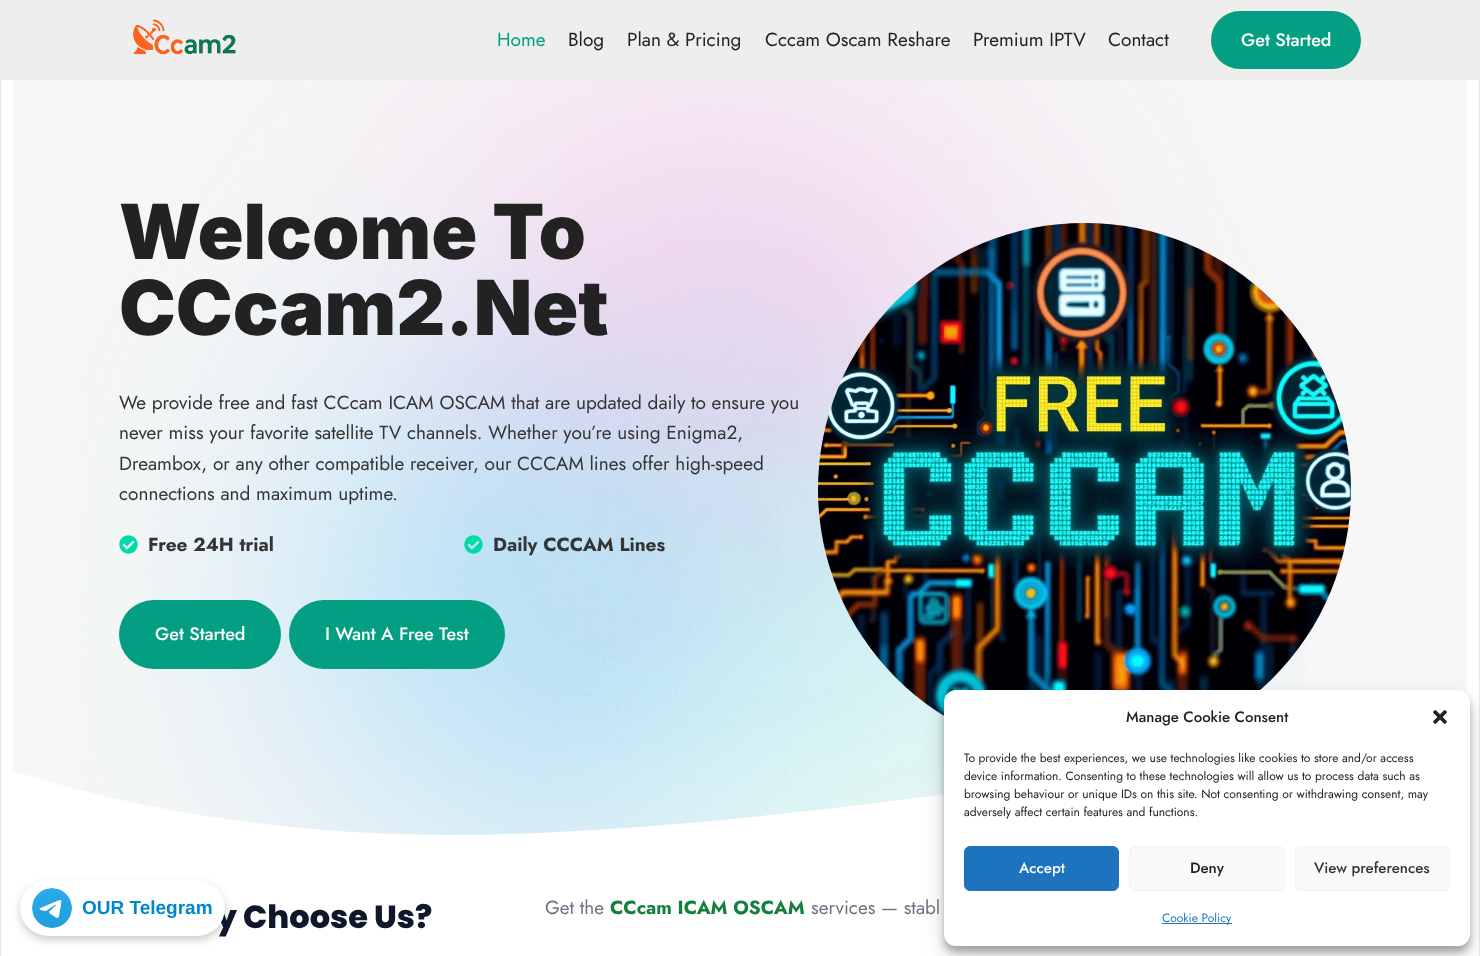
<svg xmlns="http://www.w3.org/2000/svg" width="1480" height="956">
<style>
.a{font:19px Jost;fill:#049f82}
.b{font:19px Jost;fill:#222}
.c{font:500 18px Jost;fill:#fff}
.d{font:900 76px Inter;fill:#222}
.e{font:19px Jost;fill:#353535}
.f{font:bold 19px Jost;fill:#353535}
.g{font:800 32px Poppins;fill:#0f172a}
.h{font:bold 19px Liberation Sans;fill:#08c}
.i{font:19px Jost;fill:#6b7280}
.j{font:bold 19px Jost;fill:#15803d}
.k{font:500 15px Jost;fill:#222}
.l{font:12px Jost;fill:#222}
.m{font:500 15px Jost;fill:#fff}
.n{font:500 15px Jost;fill:#353535}
.o{font:12px Jost;fill:#1e73be}
</style>
<defs>
<clipPath id="clip1"><path d="M13 664h1454v174H13z"/></clipPath>
</defs>
<rect width="100%" height="100%" fill="#fff"/>
<path fill="none" stroke="#e5e7eb" d="M0.5 0.5h1479v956H0.5z"/>
<path fill="#eee" d="M0 0h1480v80H0z"/>
<image href="1.png" x="133" y="19" width="103" height="36"/>
<rect fill="#049f82" x="1211" y="11" width="150" height="58" rx="29"/>
<path fill="#f7f7f7" d="M13 80h1454v755H13z"/>
<image href="2.png" x="81" y="80" width="1226" height="755"/>
<image href="3.png" x="119" y="535" width="19" height="19"/>
<image href="4.png" x="464" y="535" width="19" height="19"/>
<rect fill="#049f82" x="119" y="600" width="162" height="69" rx="34.5"/>
<rect fill="#049f82" x="289" y="600" width="216" height="69" rx="34.5"/>
<g clip-path="url(#clip1)">
<path fill="#fff" d="M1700 664c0 0-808 171-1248 171c-439 0-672-171-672-171v174h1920z"/>
</g>
<image href="5.png" x="818" y="223" width="533" height="493"/>
<rect fill="#00000033" filter="blur(4px)" x="20" y="884" width="205" height="56" rx="28"/>
<rect fill="#0000003b" filter="blur(3px)" x="944" y="696" width="526" height="256" rx="12"/>
<rect fill="#00000030" filter="blur(10px)" x="944" y="700" width="526" height="256" rx="12"/>
<rect fill="#fff" x="944" y="690" width="526" height="256" rx="12"/>
<image href="7.png" x="1433" y="710" width="14" height="14"/>
<rect fill="#1e73be" stroke="#1e73be" x="964.5" y="846.5" width="154" height="44" rx="5.5"/>
<rect fill="#f9f9f9" stroke="#f2f2f2" x="1129.5" y="846.5" width="155" height="44" rx="5.5"/>
<rect fill="#f9f9f9" stroke="#f2f2f2" x="1295.5" y="846.5" width="154" height="44" rx="5.5"/>
<path fill="#1e73be" d="M1162 923h70v1H1162z"/>
<text class="a" x="497" y="46">Home</text>
<text class="b" x="568" y="46">Blog</text>
<text class="b" x="627" y="46">Plan &amp; Pricing</text>
<text class="b" x="765" y="46">Cccam Oscam Reshare</text>
<text class="b" x="973" y="46">Premium IPTV</text>
<text class="b" x="1108" y="46">Contact</text>
<text class="c" x="1241" y="46">Get Started</text>
<text class="d" x="119" y="259">Welcome To</text>
<text class="d" x="119" y="335">CCcam2.Net</text>
<text class="e" x="119" y="409">We provide free and fast CCcam ICAM OSCAM that are updated daily to ensure you</text>
<text class="e" x="119" y="439">never miss your favorite satellite TV channels. Whether you’re using Enigma2,</text>
<text class="e" x="119" y="470">Dreambox, or any other compatible receiver, our CCCAM lines offer high-speed</text>
<text class="e" x="119" y="500">connections and maximum uptime.</text>
<text class="f" x="148" y="551">Free 24H trial</text>
<text class="f" x="493" y="551">Daily CCCAM Lines</text>
<text class="c" x="155" y="640">Get Started</text>
<text class="c" x="325" y="640">I Want A Free Test</text>
<text class="g" x="216" y="928">y Choose Us?</text>
<rect fill="#fff" x="20" y="880" width="205" height="56" rx="28"/>
<text class="h" x="82" y="914">OUR Telegram</text>
<image href="6.png" x="32" y="888" width="40" height="40"/>
<text class="i" x="545" y="914">Get the</text>
<text class="j" x="610" y="914">CCcam ICAM OSCAM</text>
<text class="i" x="811" y="914">services — stabl</text>
<text class="k" x="1126" y="722">Manage Cookie Consent</text>
<text class="l" x="964" y="762">To provide the best experiences, we use technologies like cookies to store and/or access</text>
<text class="l" x="964" y="780">device information. Consenting to these technologies will allow us to process data such as</text>
<text class="l" x="964" y="798">browsing behaviour or unique IDs on this site. Not consenting or withdrawing consent, may</text>
<text class="l" x="964" y="816">adversely affect certain features and functions.</text>
<text class="m" x="1019" y="873">Accept</text>
<text class="k" x="1190" y="873">Deny</text>
<text class="n" x="1314" y="873">View preferences</text>
<text class="o" x="1162" y="922">Cookie Policy</text>
</svg>
